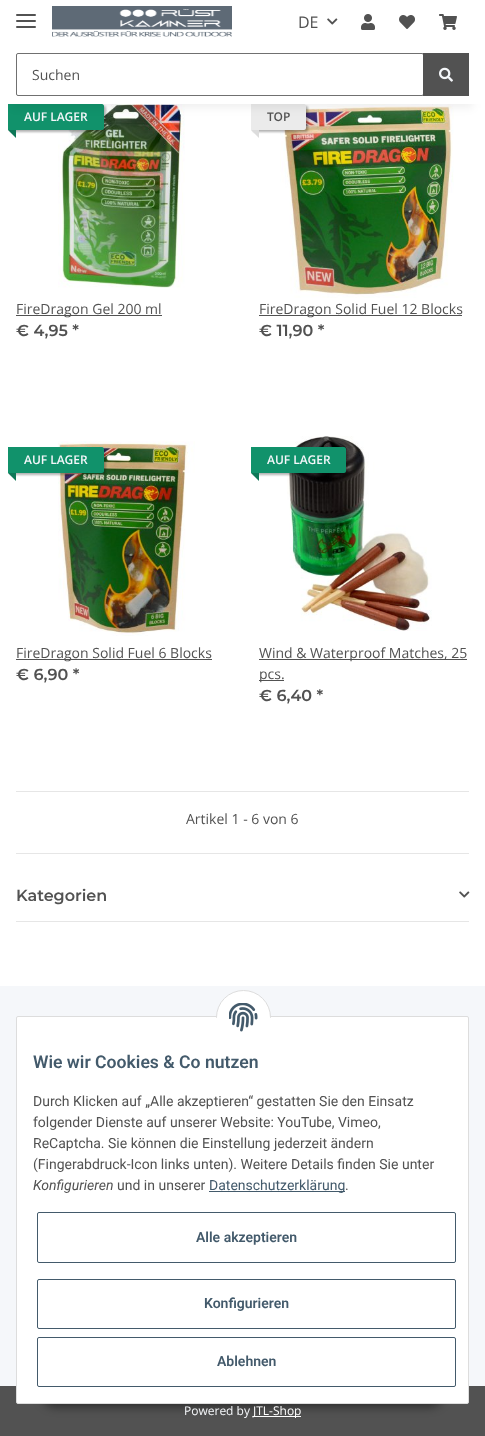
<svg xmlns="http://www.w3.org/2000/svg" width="485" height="1436">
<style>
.a{font:16px Open Sans;fill:#525252}
.b{font:14px Open Sans;fill:#525252}
.c{font:600 12px Open Sans;fill:#f5f7fa}
.d{font:600 16px Montserrat;fill:#525252}
.e{font:600 12px Open Sans;fill:#525252}
.f{font:600 17.6px Roboto;fill:#435a6b}
.g{font:14px Roboto;fill:#525252}
.h{font:italic 14px Roboto;fill:#525252}
.i{font:14px Roboto;fill:#435a6b}
.j{font:600 14px Roboto;fill:#435a6b}
.k{font:12px Open Sans;fill:#f5f7fa}
.l{font:12px Open Sans;fill:#fff}
</style>
<rect width="100%" height="100%" fill="#f5f7fa"/>
<path fill="#fff" d="M0 104h485v882H0z"/>
<image href="7.png" x="58" y="104" width="127" height="184"/>
<rect fill="#0000004d" filter="blur(1px)" x="10" y="106" width="96" height="26" rx="2"/>
<path fill="#11926b" d="M8 104h94c1 0 2 1 2 2v22c0 1-1 2-2 2h-94z"/>
<image href="8.png" x="280" y="104" width="174" height="194"/>
<rect fill="#0000004d" filter="blur(1px)" x="253" y="106" width="55" height="26" rx="2"/>
<path fill="#ebebeb" d="M251 104h53c1 0 2 1 2 2v22c0 1-1 2-2 2h-53z"/>
<path fill="#0000000f" filter="blur(4.5px)" d="M12 28h461v80H12z"/>
<path fill="#fff" d="M0 0h485v104H0z"/>
<rect fill="#525252" x="16" y="20" width="20" height="2" rx="1"/>
<rect fill="#525252" x="16" y="14" width="20" height="2" rx="1"/>
<rect fill="#525252" x="16" y="26" width="20" height="2" rx="1"/>
<image href="1.png" x="52" y="6" width="180" height="31"/>
<image href="2.png" x="327" y="18" width="11" height="7"/>
<image href="3.png" x="361" y="14" width="14" height="16"/>
<image href="4.png" x="399" y="15" width="16" height="14"/>
<image href="5.png" x="439" y="14" width="18" height="16"/>
<rect fill="none" stroke="#707070" x="16.5" y="53.5" width="407" height="42" rx="1.5"/>
<path fill="#525252" d="M423 53h46v43H423z"/>
<image href="6.png" x="439" y="67" width="14" height="15"/>
<path fill="#0e7757" d="M16 130v8l-8-8z"/>
<path fill="#525252" d="M16 315h146v1H16z"/>
<path fill="#dcdcdc" d="M259 130v8l-8-8z"/>
<path fill="#525252" d="M259 315h203v1H259z"/>
<image href="9.png" x="58" y="441" width="137" height="195"/>
<rect fill="#0000004d" filter="blur(1px)" x="10" y="449" width="96" height="26" rx="2"/>
<path fill="#11926b" d="M8 447h94c1 0 2 1 2 2v22c0 1-1 2-2 2h-94z"/>
<path fill="#0e7757" d="M16 473v8l-8-8z"/>
<path fill="#525252" d="M16 659h196v1H16z"/>
<image href="10.png" x="287" y="436" width="145" height="195"/>
<rect fill="#0000004d" filter="blur(1px)" x="253" y="449" width="95" height="26" rx="2"/>
<path fill="#11926b" d="M251 447h93c1 0 2 1 2 2v22c0 1-1 2-2 2h-93z"/>
<path fill="#0e7757" d="M259 473v8l-8-8z"/>
<path fill="#525252" d="M259 659h208v1H259z"/>
<path fill="#525252" d="M259 680h25v1H259z"/>
<path fill="#e6e6e6" d="M16 791h453v1H16z"/>
<path fill="#e6e6e6" d="M16 853h453v1H16z"/>
<image href="2.png" x="459" y="891" width="11" height="7"/>
<path fill="#e6e6e6" d="M16 921h453v1H16z"/>
<path fill="#525252" d="M0 1386h485v50H0z"/>
<path fill="#fff" d="M253 1416h48v1H253z"/>
<rect fill="#00000073" filter="blur(5px)" x="40" y="1375" width="405" height="32" rx="16"/>
<rect fill="#fff" stroke="#ddd" x="16.5" y="1016.5" width="452" height="387" rx="1.5"/>
<circle fill="#fff" stroke="#ddd" cx="243.5" cy="1017.5" r="27"/>
<path fill="#fff" d="M216 1018h55v27H216z"/>
<image href="11.png" x="229" y="1003" width="29" height="29"/>
<path fill="#435a6b" d="M209 1191h136v1H209z"/>
<rect fill="none" stroke="#435a6b" x="37.5" y="1212.5" width="418" height="50" rx="1.5"/>
<rect fill="none" stroke="#435a6b" x="37.5" y="1279.5" width="418" height="49" rx="1.5"/>
<rect fill="none" stroke="#435a6b" x="37.5" y="1337.5" width="418" height="49" rx="1.5"/>
<text class="a" x="298" y="28">DE</text>
<text class="b" x="32" y="80">Suchen</text>
<text class="c" x="24" y="121">AUF LAGER</text>
<text class="b" x="16" y="314">FireDragon Gel 200 ml</text>
<text class="d" x="16" y="336">€ 4,95 *</text>
<text class="e" x="267" y="121">TOP</text>
<text class="b" x="259" y="314">FireDragon Solid Fuel 12 Blocks</text>
<text class="d" x="259" y="336">€ 11,90 *</text>
<text class="c" x="24" y="464">AUF LAGER</text>
<text class="b" x="16" y="658">FireDragon Solid Fuel 6 Blocks</text>
<text class="d" x="16" y="680">€ 6,90 *</text>
<text class="c" x="267" y="464">AUF LAGER</text>
<text class="b" x="259" y="658">Wind &amp; Waterproof Matches, 25</text>
<text class="b" x="259" y="679">pcs.</text>
<text class="d" x="259" y="701">€ 6,40 *</text>
<text class="b" x="186" y="824">Artikel 1 - 6 von 6</text>
<text class="d" x="16" y="901">Kategorien</text>
<text class="f" x="33" y="1068">Wie wir Cookies &amp; Co nutzen</text>
<text class="g" x="33" y="1106">Durch Klicken auf „Alle akzeptieren“ gestatten Sie den Einsatz</text>
<text class="g" x="33" y="1127">folgender Dienste auf unserer Website: YouTube, Vimeo,</text>
<text class="g" x="33" y="1148">ReCaptcha. Sie können die Einstellung jederzeit ändern</text>
<text class="g" x="33" y="1169">(Fingerabdruck-Icon links unten). Weitere Details finden Sie unter</text>
<text class="h" x="33" y="1190">Konfigurieren</text>
<text class="g" x="117" y="1190">und in unserer</text>
<text class="i" x="209" y="1190">Datenschutzerklärung</text>
<text class="g" x="345" y="1190">.</text>
<text class="j" x="196" y="1242">Alle akzeptieren</text>
<text class="j" x="204" y="1308">Konfigurieren</text>
<text class="j" x="217" y="1366">Ablehnen</text>
<text class="k" x="184" y="1415">Powered by</text>
<text class="l" x="253" y="1415">JTL-Shop</text>
</svg>
